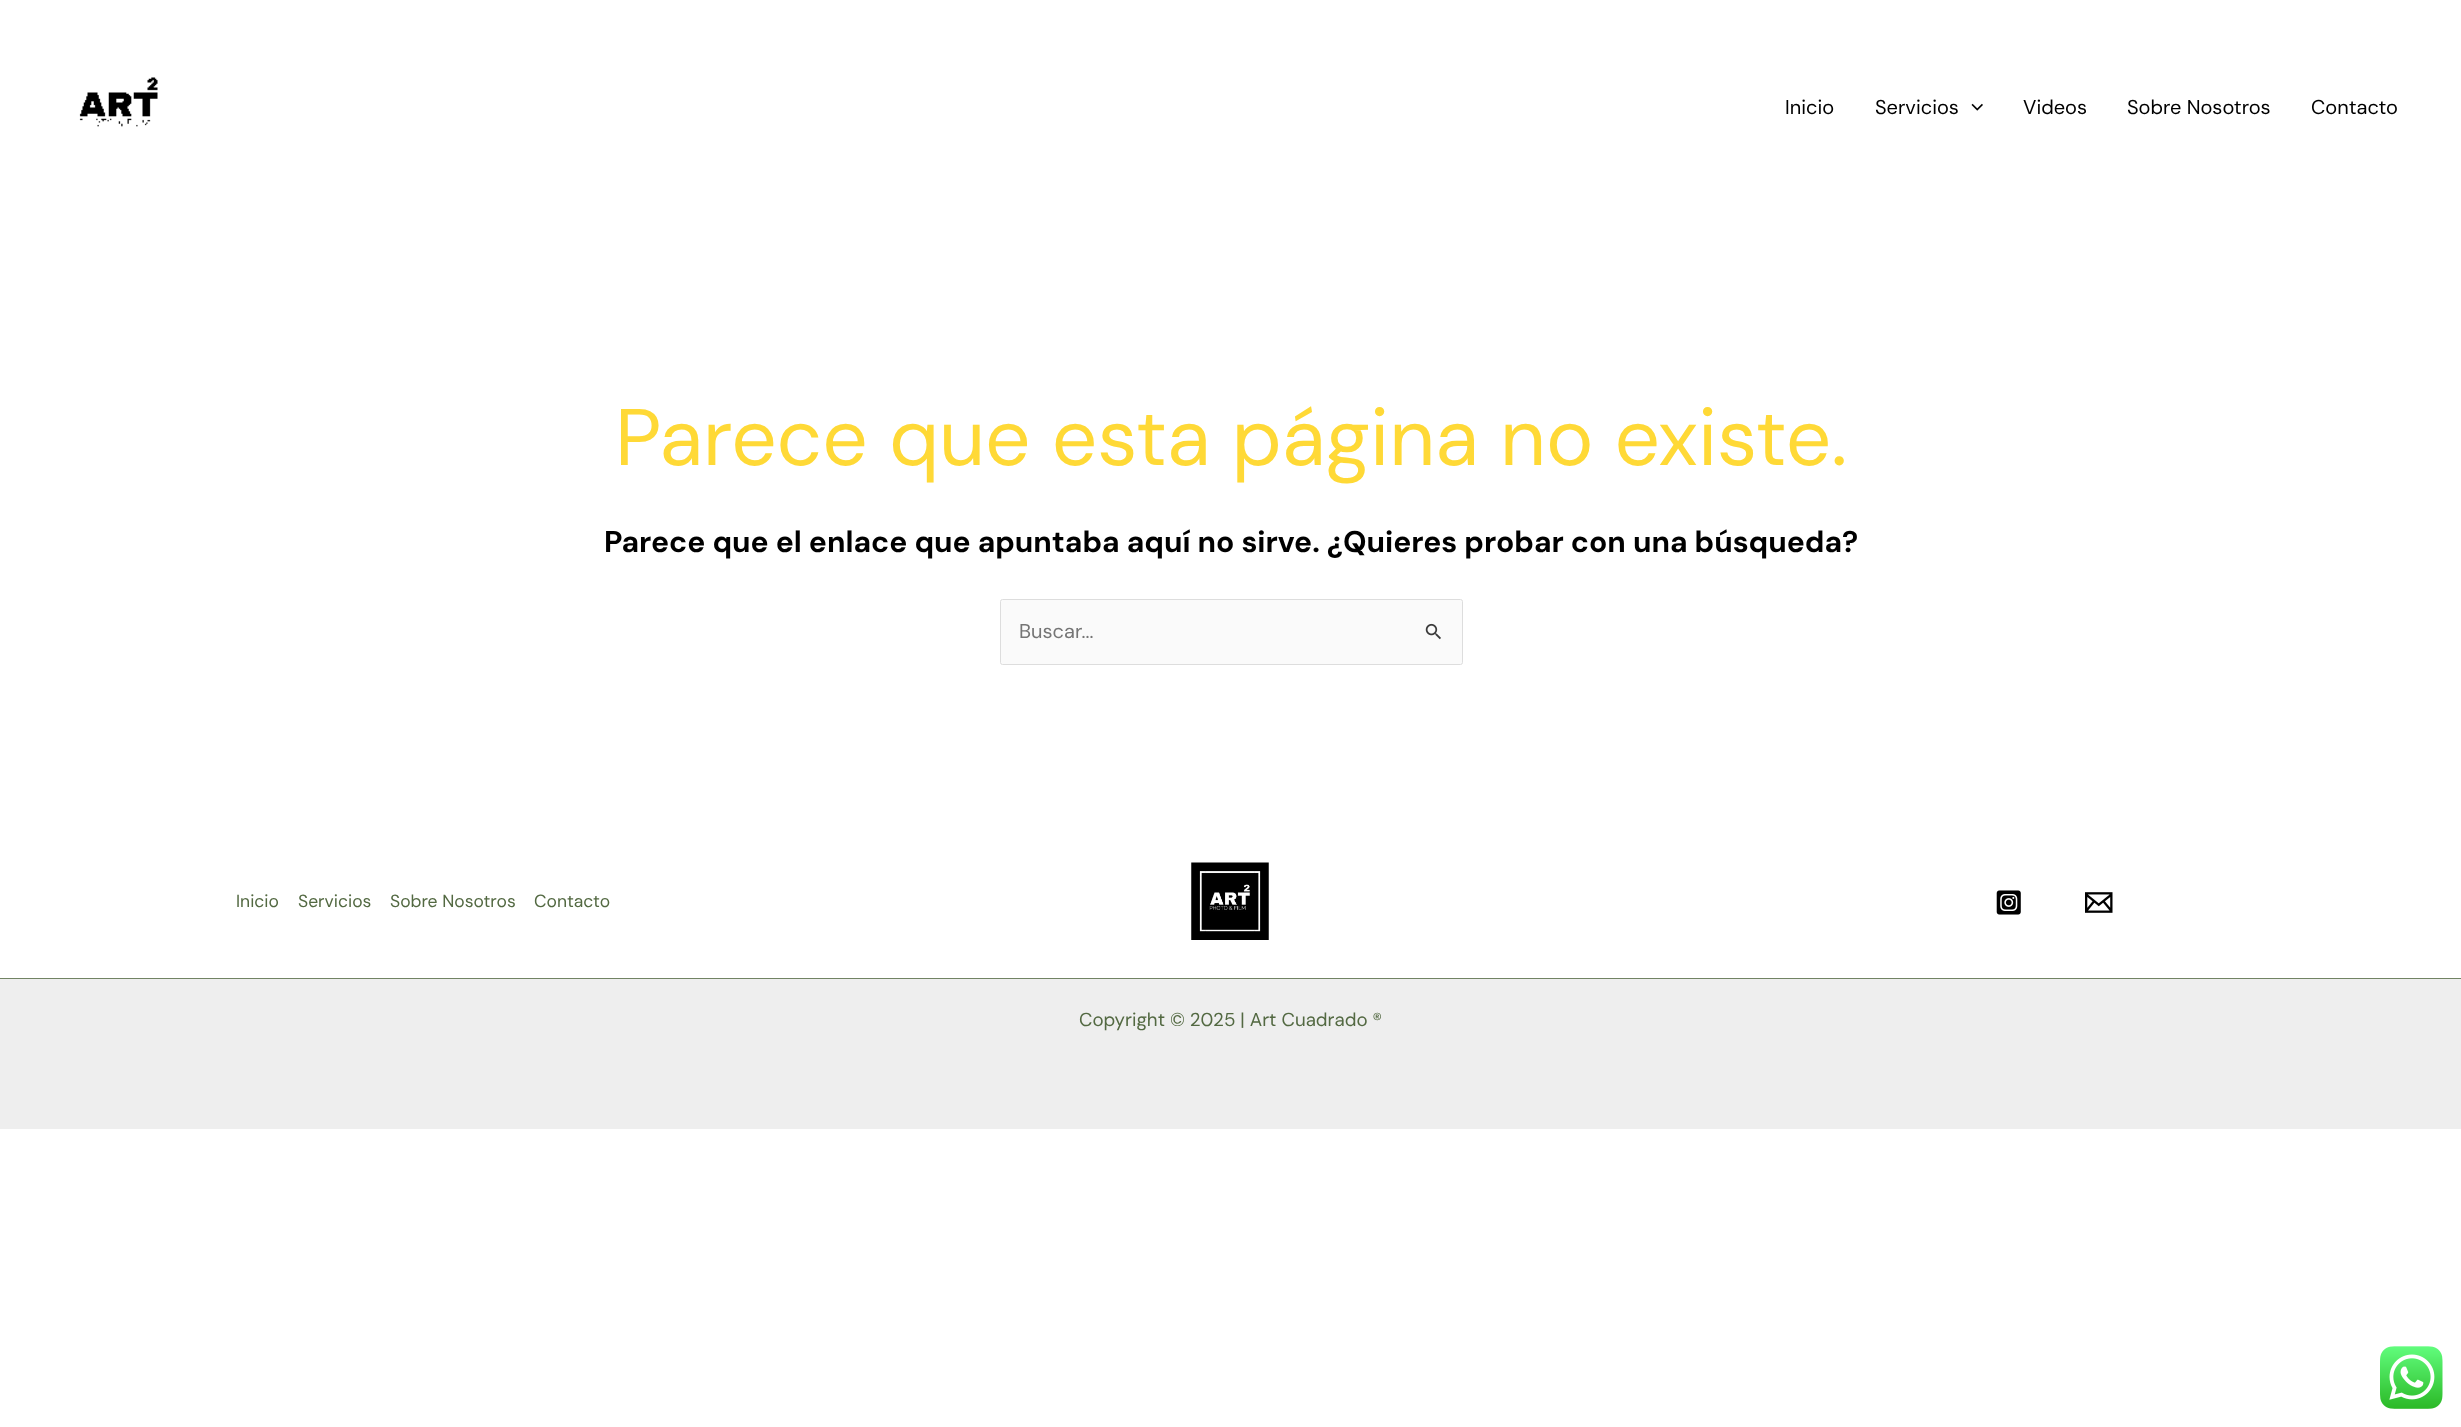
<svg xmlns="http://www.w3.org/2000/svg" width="2461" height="1427">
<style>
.a{font:20px DM Sans;fill:#000}
.b{font:80px DM Sans;fill:#ffd936}
.c{font:bold 30px DM Sans;fill:#000}
.d{font:20px DM Sans;fill:#757575}
.e{font:17.5px DM Sans;fill:#536942}
.f{font:18.75px DM Sans;fill:#536942}
</style>
<rect width="100%" height="100%" fill="#fff"/>
<image href="1.png" x="79" y="77" width="79" height="50"/>
<image href="2.png" x="1971" y="103" width="12" height="8"/>
<rect fill="#fafafa" stroke="#ddd" x="1000.5" y="599.5" width="462" height="65" rx="2"/>
<image href="3.png" x="1425" y="623" width="16" height="17"/>
<image href="4.png" x="1191" y="862" width="78" height="78"/>
<image href="5.png" x="1996" y="890" width="25" height="25"/>
<image href="6.png" x="2085" y="892" width="28" height="21"/>
<path fill="#eee" d="M0 979h2461v150H0z"/>
<path fill="#718363" d="M0 978h2461v1H0z"/>
<image href="7.png" x="2380" y="1346" width="63" height="63"/>
<text class="a" x="1785" y="114">Inicio</text>
<text class="a" x="1875" y="114">Servicios</text>
<text class="a" x="2023" y="114">Videos</text>
<text class="a" x="2127" y="114">Sobre Nosotros</text>
<text class="a" x="2311" y="114">Contacto</text>
<text class="b" x="615" y="465">Parece que esta página no existe.</text>
<text class="c" x="604" y="552">Parece que el enlace que apuntaba aquí no sirve. ¿Quieres probar con una búsqueda?</text>
<text class="d" x="1019" y="638">Buscar...</text>
<text class="e" x="236" y="907">Inicio</text>
<text class="e" x="298" y="907">Servicios</text>
<text class="e" x="390" y="907">Sobre Nosotros</text>
<text class="e" x="534" y="907">Contacto</text>
<text class="f" x="1079" y="1026">Copyright © 2025 | Art Cuadrado ®</text>
</svg>
